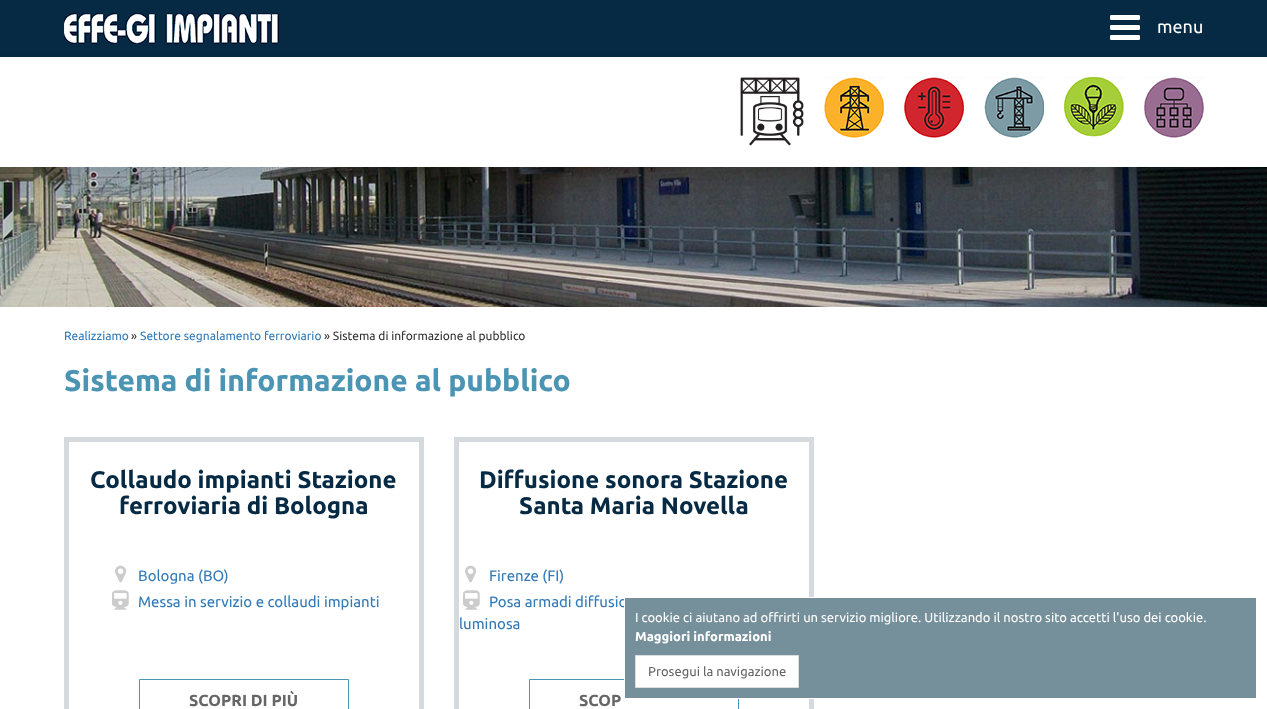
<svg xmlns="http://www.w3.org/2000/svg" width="1267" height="709">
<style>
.a{font:18px Ubuntu;fill:#fff}
.b{font:12px Ubuntu;fill:#337ab7}
.c{font:12px Ubuntu;fill:#333}
.d{font:bold 30px Ubuntu;fill:#4b94b3}
.e{font:bold 24px Ubuntu;fill:#062a44}
.f{font:15px Ubuntu;fill:#337ab7}
.g{font:bold 16px Ubuntu;fill:#666}
.h{font:13px Ubuntu;fill:#fff}
.i{font:bold 13px Ubuntu;fill:#fff}
.j{font:13px Ubuntu;fill:#666}
</style>
<rect width="100%" height="100%" fill="#fff"/>
<path fill="#062a44" d="M0 0h1267v57H0z"/>
<image href="1.png" x="64" y="13" width="215" height="31"/>
<image href="2.png" x="1110" y="15" width="30" height="25"/>
<image href="3.png" x="0" y="167" width="1267" height="140"/>
<path fill="#0000001a" filter="blur(7.5px)" d="M0 67h1267v110H0z"/>
<path fill="#fff" d="M0 57h1267v110H0z"/>
<image href="4.png" x="740" y="77" width="64" height="69"/>
<image href="5.png" x="824" y="77" width="60" height="61"/>
<image href="6.png" x="904" y="77" width="60" height="61"/>
<image href="7.png" x="984" y="77" width="60" height="61"/>
<image href="8.png" x="1064" y="77" width="60" height="60"/>
<image href="9.png" x="1144" y="77" width="60" height="61"/>
<path fill="none" stroke="#d4dadd" stroke-width="5" d="M66.5 439.5h355v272H66.5z"/>
<image href="10.png" x="115" y="565" width="12" height="18"/>
<image href="11.png" x="112" y="590" width="17" height="20"/>
<path fill="none" stroke="#4b94b3" d="M139.5 679.5h209v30H139.5z"/>
<path fill="none" stroke="#d4dadd" stroke-width="5" d="M456.5 439.5h355v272H456.5z"/>
<image href="10.png" x="465" y="565" width="12" height="18"/>
<image href="11.png" x="463" y="590" width="17" height="20"/>
<path fill="none" stroke="#4b94b3" d="M529.5 679.5h209v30H529.5z"/>
<text class="a" x="1157" y="33">menu</text>
<text class="b" x="64" y="340">Realizziamo</text>
<text class="c" x="131" y="340">»</text>
<text class="b" x="140" y="340">Settore segnalamento ferroviario</text>
<text class="c" x="324" y="340">» Sistema di informazione al pubblico</text>
<text class="d" x="64" y="391">Sistema di informazione al pubblico</text>
<text class="e" x="90" y="488">Collaudo impianti Stazione</text>
<text class="e" x="119" y="514">ferroviaria di Bologna</text>
<text class="f" x="138" y="581">Bologna (BO)</text>
<text class="f" x="138" y="607">Messa in servizio e collaudi impianti</text>
<text class="g" x="189" y="706">SCOPRI DI PIÙ</text>
<text class="e" x="479" y="488">Diffusione sonora Stazione</text>
<text class="e" x="519" y="514">Santa Maria Novella</text>
<text class="f" x="489" y="581">Firenze (FI)</text>
<text class="f" x="489" y="607">Posa armadi diffusio</text>
<text class="f" x="459" y="629">luminosa</text>
<text class="g" x="579" y="706">SCOP</text>
<path fill="#758f9b" stroke="#fff" d="M624.5 597.5h632v101H624.5z"/>
<text class="h" x="635" y="622">I cookie ci aiutano ad offrirti un servizio migliore. Utilizzando il nostro sito accetti l'uso dei cookie.</text>
<text class="i" x="635" y="641">Maggiori informazioni</text>
<path fill="#fff" stroke="#ddd" d="M635.5 655.5h163v32H635.5z"/>
<text class="j" x="648" y="676">Prosegui la navigazione</text>
</svg>
